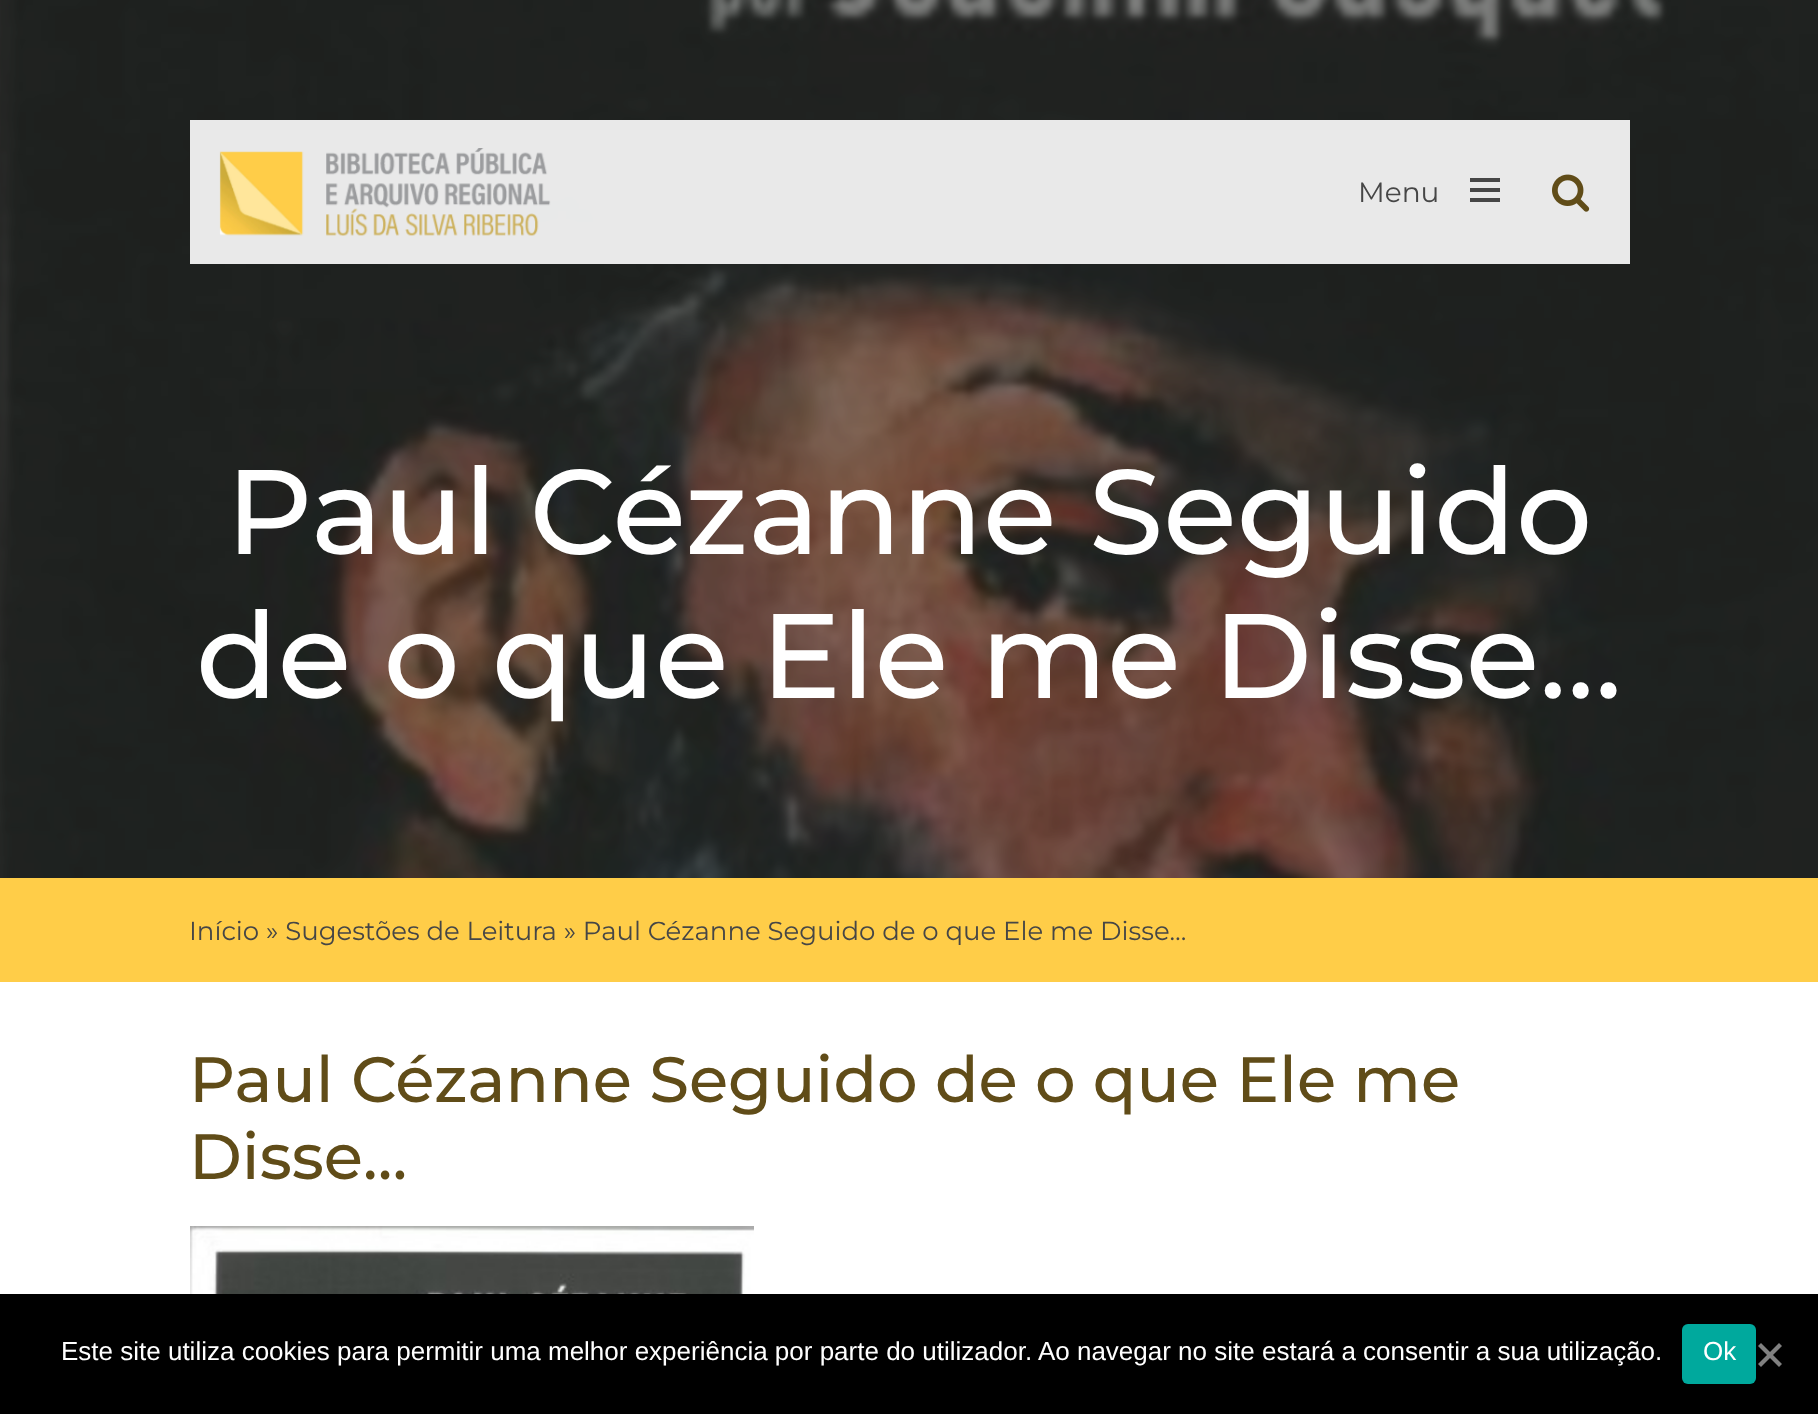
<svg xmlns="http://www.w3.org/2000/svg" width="1818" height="1414">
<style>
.a{font:28px Montserrat;fill:#464646}
.b{font:500 120px Montserrat;fill:#fff}
.c{font:26px Montserrat;fill:#464646}
.d{font:500 64px Montserrat;fill:#604c18}
.e{font:26px Liberation Sans;fill:#fff}
</style>
<rect width="100%" height="100%" fill="#fff"/>
<image href="3.png" x="0" y="0" width="1818" height="878"/>
<path fill="#ffffffe6" d="M190 120h1440v144H190z"/>
<image href="1.png" x="219" y="148" width="332" height="88"/>
<path fill="#464646" d="M1470 178h30v4H1470z"/>
<path fill="#464646" d="M1470 188h30v4H1470z"/>
<path fill="#464646" d="M1470 198h30v4H1470z"/>
<image href="2.png" x="1552" y="174" width="38" height="38"/>
<path fill="#ffcd48" d="M0 878h1818v104H0z"/>
<image href="4.png" x="190" y="1226" width="564" height="68"/>
<path fill="#000" d="M0 1294h1818v120H0z"/>
<rect fill="#00a99d" x="1682" y="1324" width="74" height="60" rx="6"/>
<path fill="#808080" d="M1779 1343l3 3l-21 21l-3-3z"/>
<path fill="#808080" d="M1758 1346l3-3l21 21l-3 3z"/>
<text class="a" x="1358" y="202">Menu</text>
<text class="b" x="226" y="554">Paul Cézanne Seguido</text>
<text class="b" x="196" y="698">de o que Ele me Disse…</text>
<text class="c" x="189" y="940">Início » Sugestões de Leitura » Paul Cézanne Seguido de o que Ele me Disse…</text>
<text class="d" x="189" y="1102">Paul Cézanne Seguido de o que Ele me</text>
<text class="d" x="189" y="1179">Disse…</text>
<text class="e" x="61" y="1360">Este site utiliza cookies para permitir uma melhor experiência por parte do utilizador. Ao navegar no site estará a consentir a sua utilização.</text>
<text class="e" x="1703" y="1360">Ok</text>
</svg>
